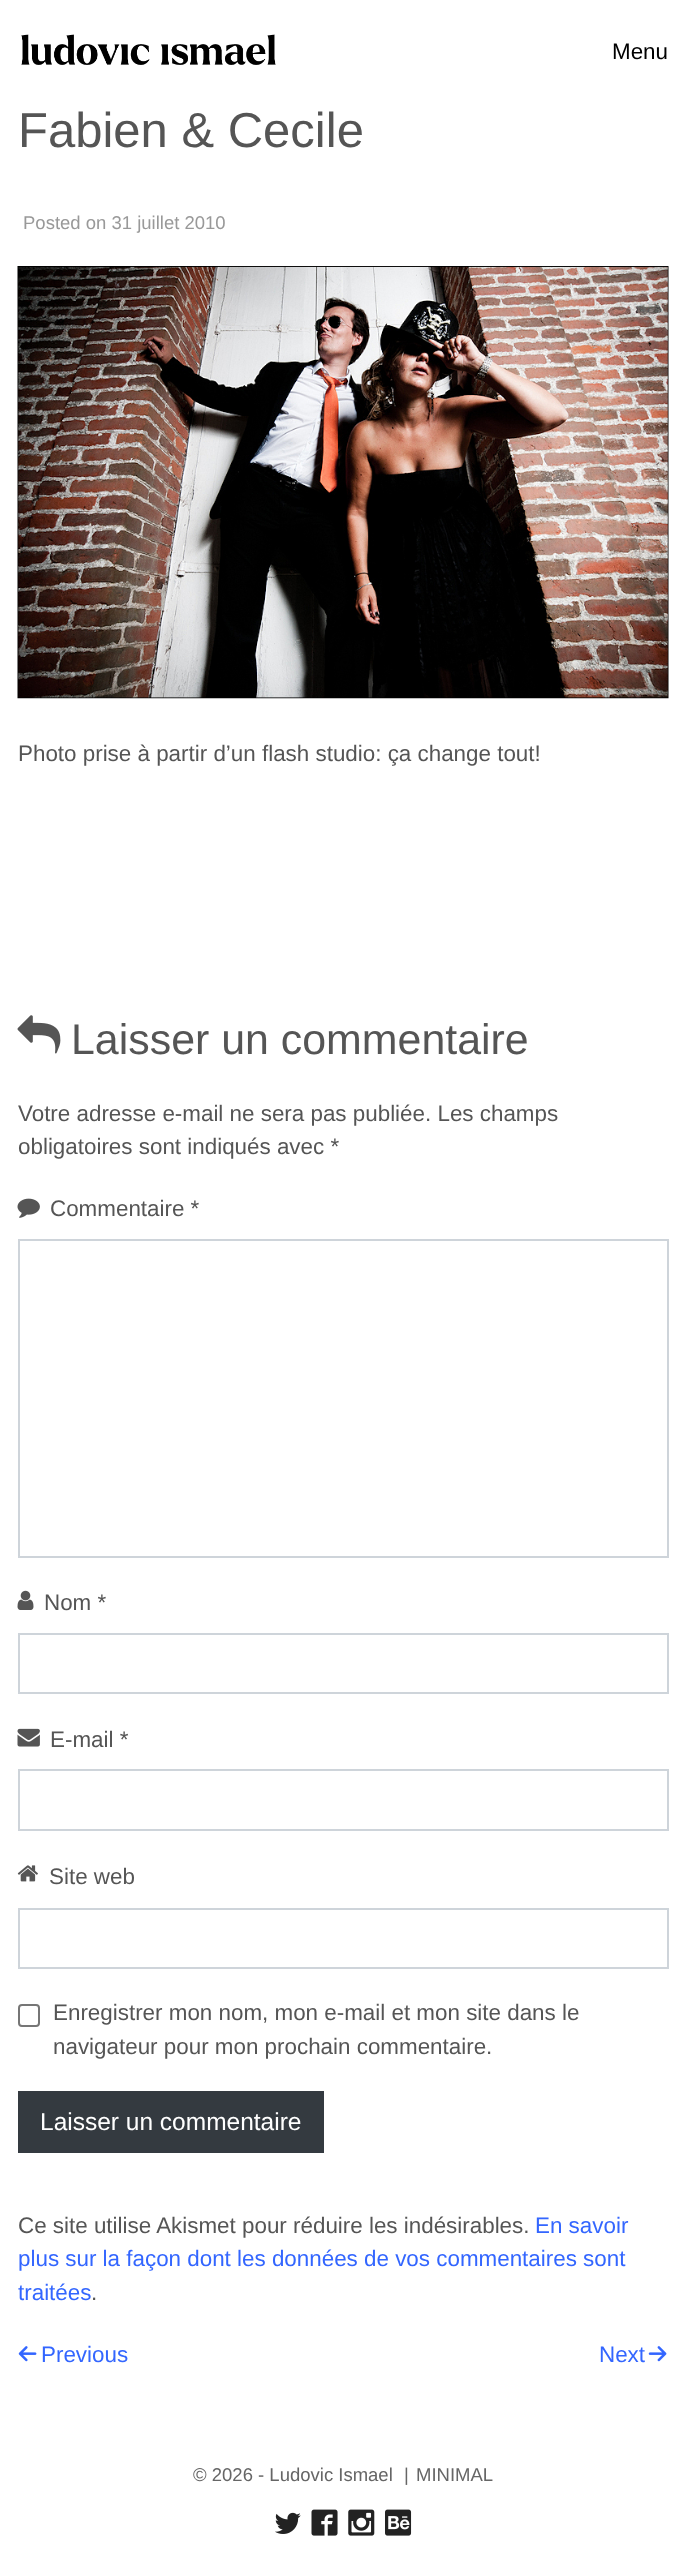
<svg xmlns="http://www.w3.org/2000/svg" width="685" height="2557">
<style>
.a{font:22.4px Liberation Sans;fill:#000}
.b{font:49px Liberation Sans;fill:#555}
.c{font:18.5px Liberation Sans;fill:#999}
.d{font:22.4px Liberation Sans;fill:#555}
.e{font:42.9px Liberation Sans;fill:#555}
.f{font:24.5px Liberation Sans;fill:#fff}
.g{font:22.4px Liberation Sans;fill:#36f}
.h{font:18.5px Liberation Sans;fill:#666}
</style>
<rect width="100%" height="100%" fill="#fff"/>
<image href="1.png" x="21" y="34" width="255" height="31"/>
<image href="2.png" x="17" y="266" width="652" height="433"/>
<image href="3.png" x="17" y="1015" width="44" height="39"/>
<image href="4.png" x="17" y="1198" width="23" height="20"/>
<path fill="none" stroke="#ced4da" stroke-width="2" d="M19 1240h649v317H19z"/>
<image href="5.png" x="17" y="1590" width="17" height="20"/>
<path fill="none" stroke="#ced4da" stroke-width="2" d="M19 1634h649v59H19z"/>
<image href="6.png" x="17" y="1728" width="23" height="19"/>
<path fill="none" stroke="#ced4da" stroke-width="2" d="M19 1770h649v60H19z"/>
<image href="7.png" x="17" y="1865" width="21" height="17"/>
<path fill="none" stroke="#ced4da" stroke-width="2" d="M19 1909h649v59H19z"/>
<rect fill="none" stroke="#767676" stroke-width="2" x="19" y="2005" width="20" height="21" rx="3"/>
<path fill="#343a40" d="M18 2091h306v62H18z"/>
<image href="8.png" x="18" y="2346" width="19" height="16"/>
<image href="9.png" x="648" y="2346" width="19" height="16"/>
<image href="10.png" x="275" y="2512" width="26" height="22"/>
<image href="11.png" x="311" y="2509" width="27" height="27"/>
<image href="12.png" x="348" y="2509" width="27" height="27"/>
<image href="13.png" x="385" y="2509" width="27" height="27"/>
<text class="a" x="612" y="59">Menu</text>
<text class="b" x="18" y="147">Fabien &amp; Cecile</text>
<text class="c" x="23" y="229">Posted on 31 juillet 2010</text>
<text class="d" x="18" y="761">Photo prise à partir d’un flash studio: ça change tout!</text>
<text class="e" x="71" y="1054">Laisser un commentaire</text>
<text class="d" x="18" y="1121">Votre adresse e-mail ne sera pas publiée. Les champs</text>
<text class="d" x="18" y="1154">obligatoires sont indiqués avec *</text>
<text class="d" x="50" y="1216">Commentaire *</text>
<text class="d" x="44" y="1610">Nom *</text>
<text class="d" x="50" y="1747">E-mail *</text>
<text class="d" x="49" y="1884">Site web</text>
<text class="d" x="53" y="2020">Enregistrer mon nom, mon e-mail et mon site dans le</text>
<text class="d" x="53" y="2054">navigateur pour mon prochain commentaire.</text>
<text class="f" x="40" y="2130">Laisser un commentaire</text>
<text class="d" x="18" y="2233">Ce site utilise Akismet pour réduire les indésirables.</text>
<text class="g" x="535" y="2233">En savoir</text>
<text class="g" x="18" y="2266">plus sur la façon dont les données de vos commentaires sont</text>
<text class="g" x="18" y="2300">traitées</text>
<text class="d" x="91" y="2300">.</text>
<text class="g" x="41" y="2362">Previous</text>
<text class="g" x="599" y="2362">Next</text>
<text class="h" x="193" y="2481">© 2026 - Ludovic Ismael</text>
<text class="h" x="404" y="2481">|</text>
<text class="h" x="416" y="2481">MINIMAL</text>
</svg>
